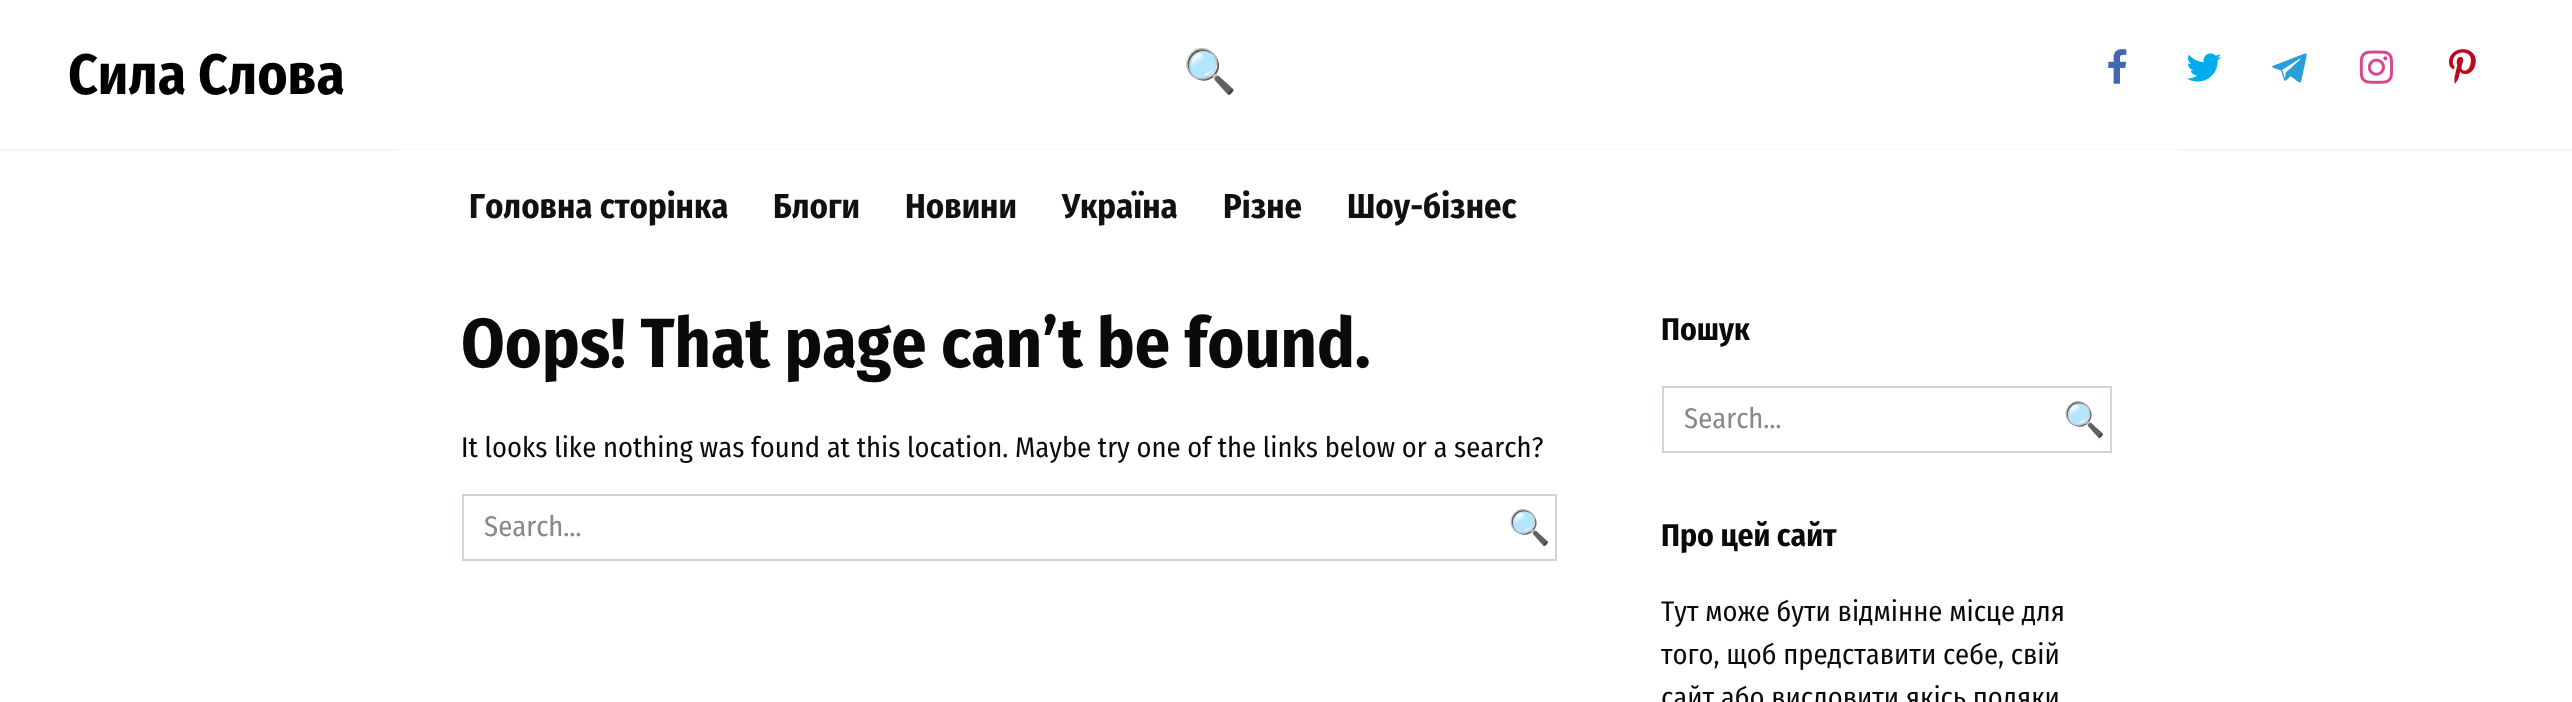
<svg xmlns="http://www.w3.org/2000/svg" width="2572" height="702">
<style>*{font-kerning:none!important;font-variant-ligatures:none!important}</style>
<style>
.a{font:bold 57px Fira Sans Condensed;fill:#000}
.b{font:43px Noto Color Emoji;fill:#000}
.c{font:bold 34.5px Fira Sans Condensed;fill:#111}
.d{font:bold 69.5px Fira Sans Condensed;fill:#0a0a0a}
.e{font:28.5px Fira Sans Condensed;fill:#0a0a0a}
.f{font:28.5px Fira Sans Condensed;fill:#888}
.g{font:34px Noto Color Emoji;fill:#000}
.h{font:bold 31.5px Fira Sans Condensed;fill:#0a0a0a}
</style>
<rect width="100%" height="100%" fill="#fff"/>
<path fill="#f2f5f9" d="M0 149h2572v2H0z"/>
<image href="1.png" x="2108" y="49" width="19" height="35"/>
<image href="2.png" x="2186" y="53" width="35" height="29"/>
<image href="3.png" x="2272" y="53" width="35" height="30"/>
<image href="4.png" x="2359" y="50" width="35" height="34"/>
<image href="5.png" x="2449" y="49" width="27" height="35"/>
<path fill="#fff" d="M395 150h1785v1H395z"/>
<path fill="none" stroke="#ced4da" stroke-width="2" d="M463 495h1093v65H463z"/>
<path fill="none" stroke="#ced4da" stroke-width="2" d="M1663 387h448v65H1663z"/>
<text class="a" x="68" y="94">Сила Слова</text>
<text class="b" x="1183" y="86">🔍</text>
<text class="c" x="469" y="218">Головна сторінка</text>
<text class="c" x="773" y="218">Блоги</text>
<text class="c" x="905" y="218">Новини</text>
<text class="c" x="1062" y="218">Україна</text>
<text class="c" x="1223" y="218">Різне</text>
<text class="c" x="1347" y="218">Шоу-бізнес</text>
<text class="d" x="461" y="367">Oops! That page can’t be found.</text>
<text class="e" x="461" y="457">It looks like nothing was found at this location. Maybe try one of the links below or a search?</text>
<text class="f" x="484" y="536">Search…</text>
<text class="g" x="1508" y="539">🔍</text>
<text class="h" x="1661" y="340">Пошук</text>
<text class="f" x="1684" y="428">Search…</text>
<text class="g" x="2063" y="431">🔍</text>
<text class="h" x="1661" y="546">Про цей сайт</text>
<text class="e" x="1661" y="621">Тут може бути відмінне місце для</text>
<text class="e" x="1661" y="664">того, щоб представити себе, свій</text>
<text class="e" x="1661" y="707">сайт або висловити якісь подяки</text>
</svg>
